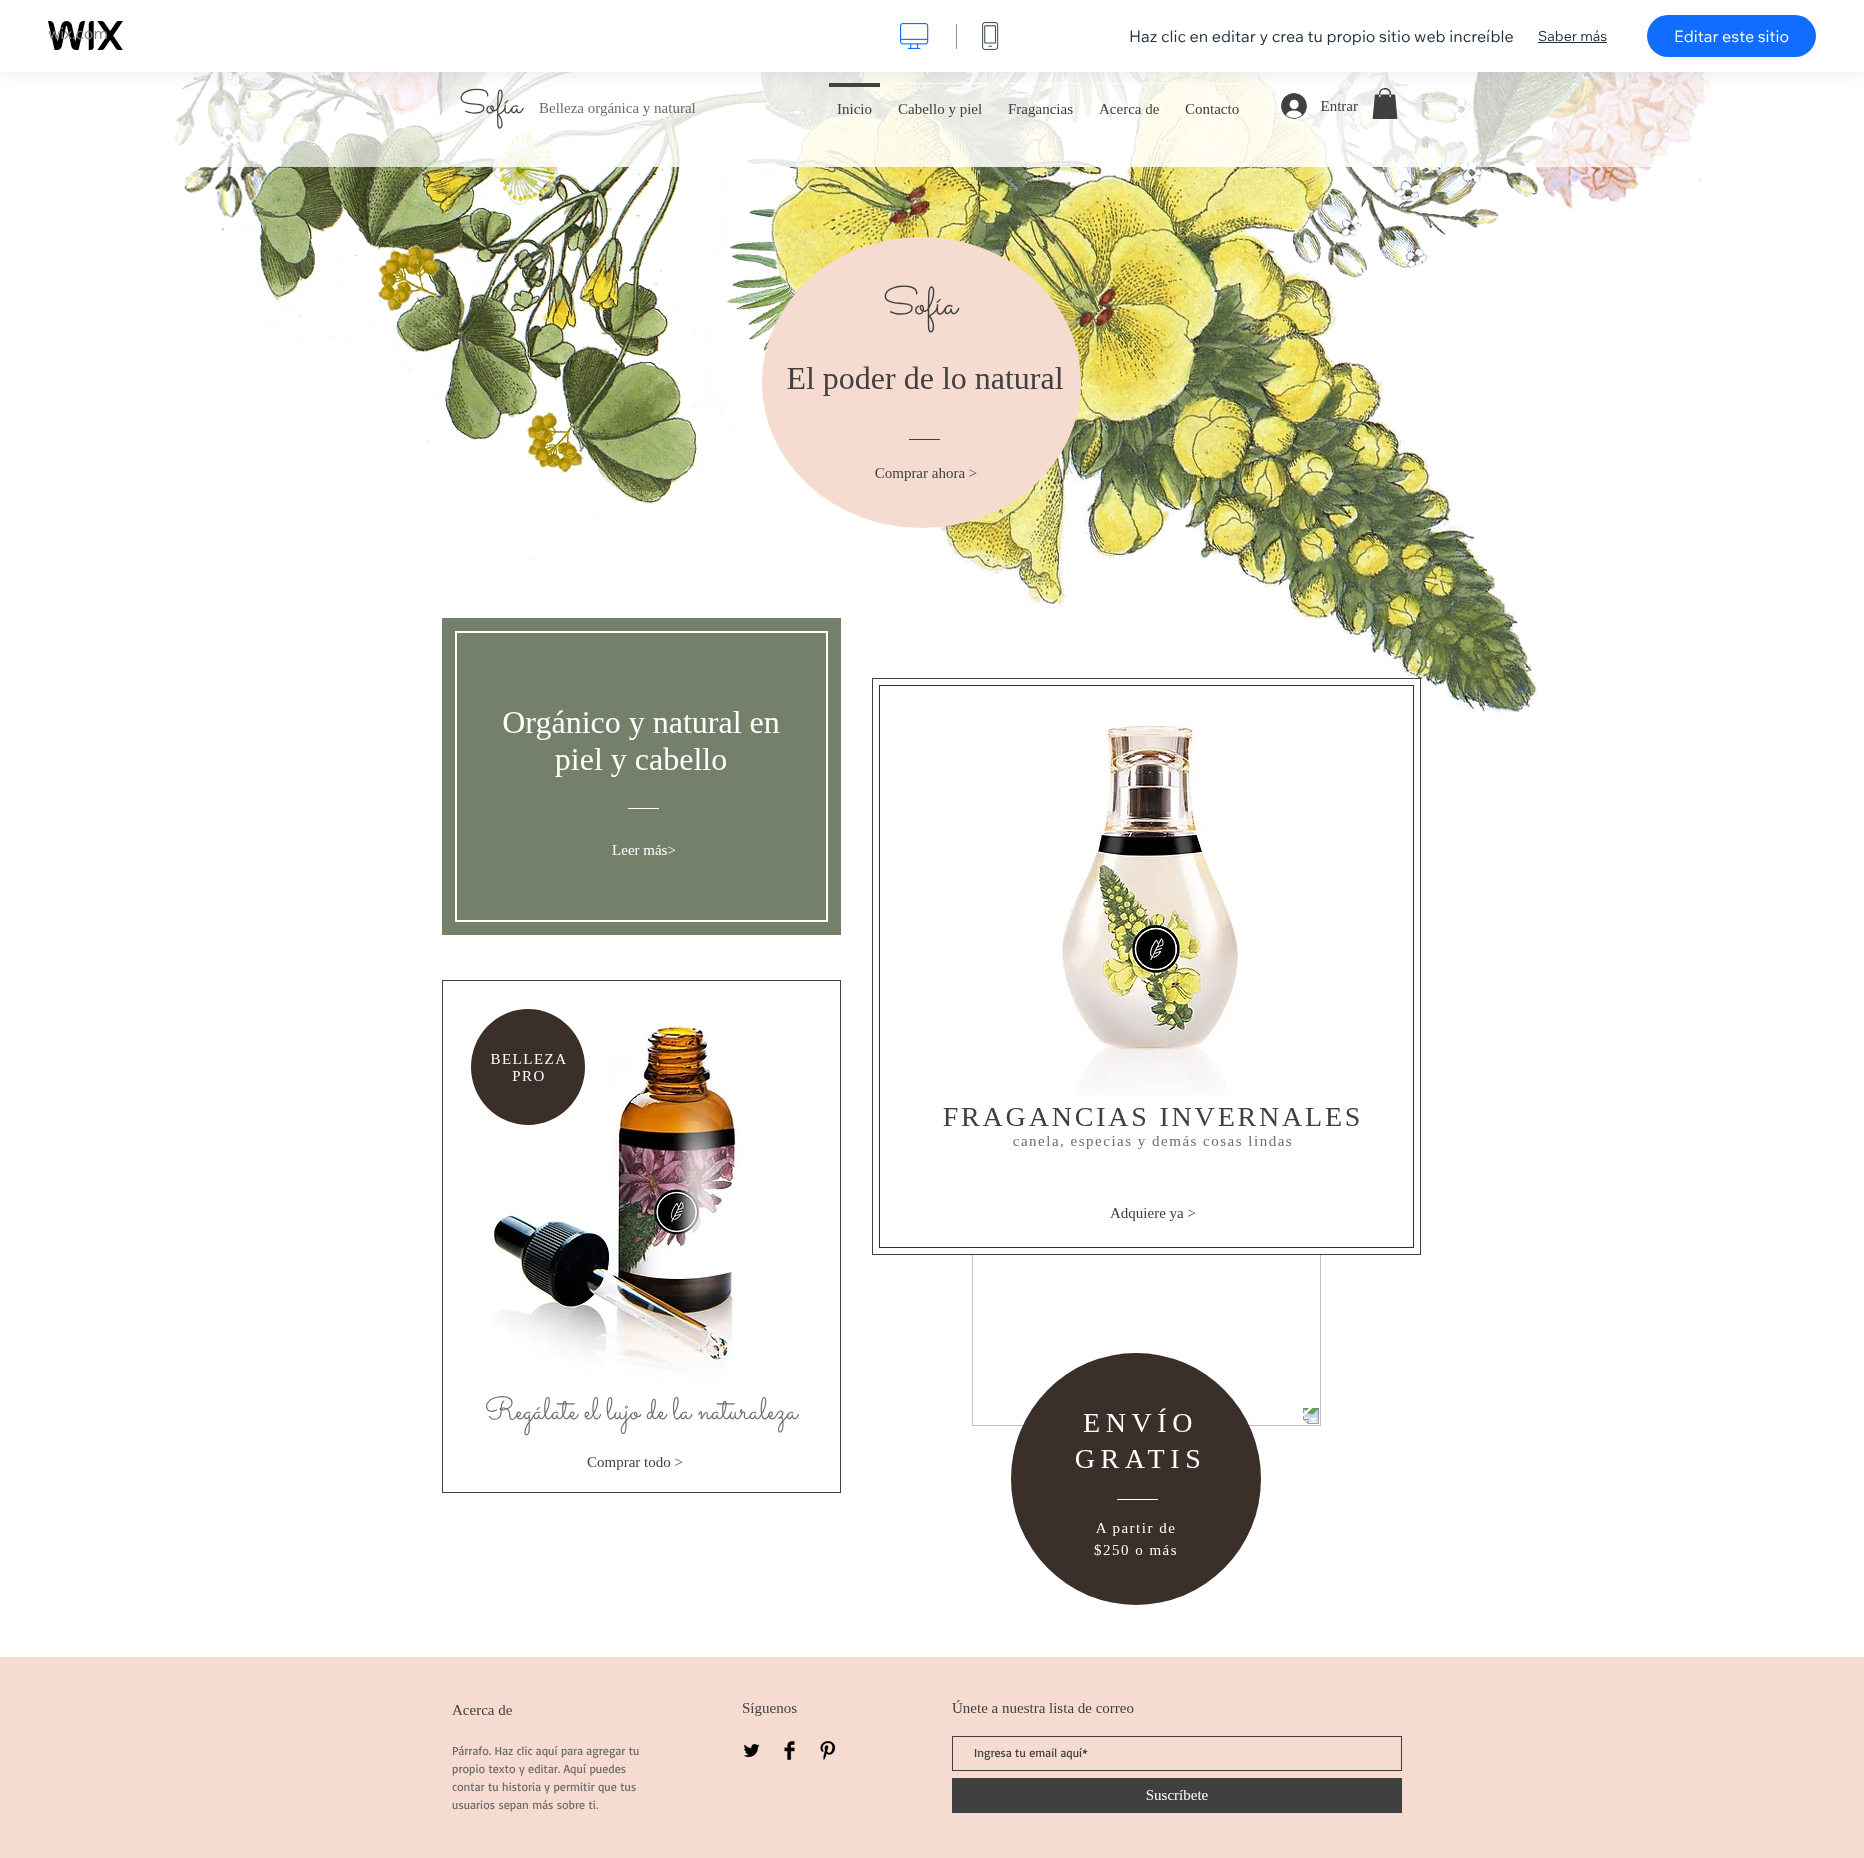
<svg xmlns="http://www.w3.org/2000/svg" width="1864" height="1858">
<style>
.a{font:16px Wix Madefor Text;fill:#888}
.b{font:16px Wix Madefor Text;fill:#20303c}
.c{font:14px Wix Madefor Text;fill:#20303c}
.d{font:16px Wix Madefor Text;fill:#fff}
</style>
<rect width="100%" height="100%" fill="#fff"/>
<image href="4.png" x="0" y="72" width="1864" height="1786"/>
<path fill="#81a2b633" filter="blur(9px)" d="M0 2h1864v72H0z"/>
<path fill="#fff" d="M0 0h1864v72H0z"/>
<image href="1.png" x="48" y="21" width="75" height="29"/>
<image href="2.png" x="900" y="23" width="29" height="26"/>
<path fill="#90989e" d="M956 24h1v25H956z"/>
<image href="3.png" x="982" y="22" width="17" height="28"/>
<path fill="#20303c" d="M1538 42h69v1H1538z"/>
<rect fill="#116dff" x="1647" y="15" width="169" height="42" rx="21"/>
<text class="a" x="48" y="39">wix.com</text>
<text class="b" x="1129" y="42">Haz clic en editar y crea tu propio sitio web increíble</text>
<text class="c" x="1538" y="41">Saber más</text>
<text class="d" x="1674" y="42">Editar este sitio</text>
</svg>
